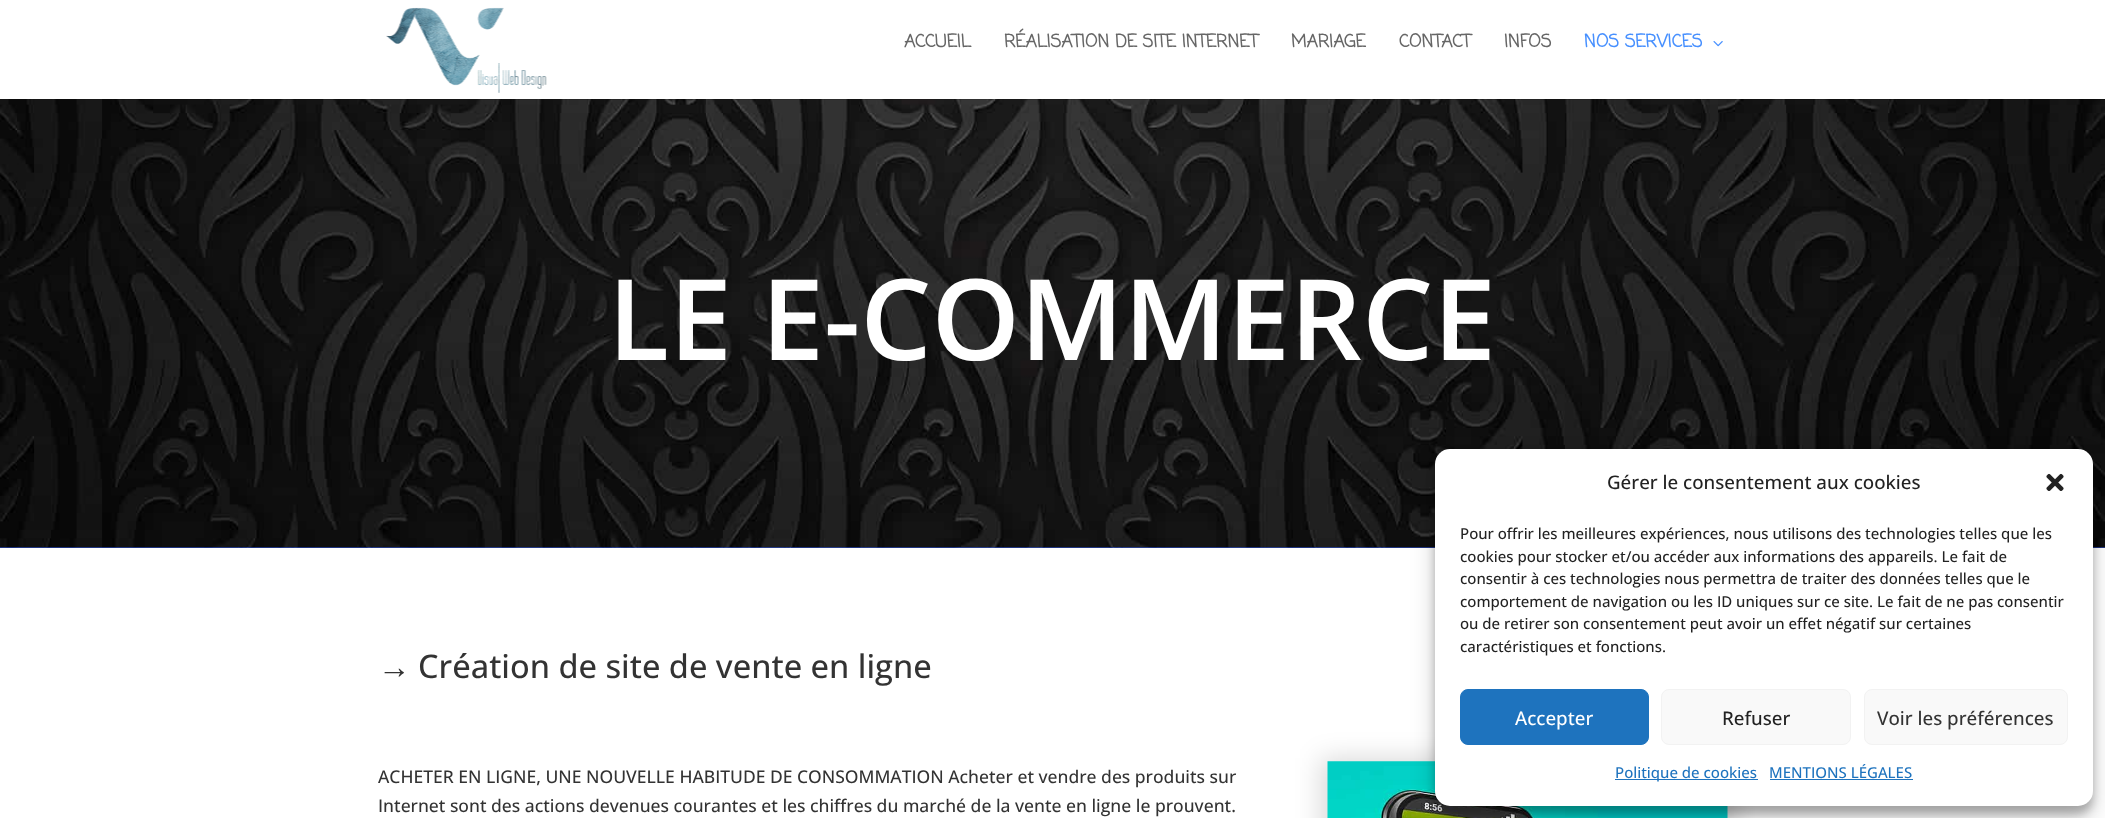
<svg xmlns="http://www.w3.org/2000/svg" width="2105" height="818">
<style>
.a{font:bold 17.5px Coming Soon;fill:#666}
.b{font:bold 17.5px Coming Soon;fill:#4790ff}
.c{font:600 112.5px Open Sans;fill:#fff}
.d{font:32.5px Liberation Sans;fill:#333}
.e{font:500 32.5px Open Sans;fill:#333}
.f{font:500 17.5px Open Sans;fill:#333}
.g{font:500 18.75px Open Sans;fill:#222}
.h{font:500 15px Open Sans;fill:#222}
.i{font:500 18.75px Open Sans;fill:#fff}
.j{font:500 18.75px Open Sans;fill:#333}
.k{font:500 15px Open Sans;fill:#1e73be}
</style>
<rect width="100%" height="100%" fill="#fff"/>
<path fill="#2e5bf2" d="M0 547h2105v1H0z"/>
<image href="3.png" x="0" y="99" width="2105" height="449"/>
<path fill="#0000001a" d="M119 99h1869v1H119z"/>
<image href="1.png" x="386" y="7" width="161" height="86"/>
<image href="2.png" x="1713" y="41" width="10" height="6"/>
<path fill="#00000026" filter="blur(13px)" d="M1321 758h413v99H1321z"/>
<image href="4.png" x="1327" y="761" width="401" height="57"/>
<rect fill="#0000003b" filter="blur(4px)" x="1435" y="456" width="658" height="358" rx="15"/>
<rect fill="#00000030" filter="blur(12.5px)" x="1435" y="461" width="658" height="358" rx="15"/>
<rect fill="#fff" x="1435" y="449" width="658" height="357" rx="15"/>
<image href="5.png" x="2046" y="473" width="18" height="18"/>
<rect fill="#1e73be" stroke="#1e73be" x="1460.5" y="689.5" width="188" height="55" rx="7.5"/>
<rect fill="#f9f9f9" stroke="#f2f2f2" x="1661.5" y="689.5" width="189" height="55" rx="7.5"/>
<rect fill="#f9f9f9" stroke="#f2f2f2" x="1864.5" y="689.5" width="203" height="55" rx="7.5"/>
<path fill="#1e73be" d="M1615 779h143v1H1615z"/>
<path fill="#1e73be" d="M1770 779h143v1H1770z"/>
<text class="a" x="904" y="47">ACCUEIL</text>
<text class="a" x="1004" y="47">RÉALISATION DE SITE INTERNET</text>
<text class="a" x="1291" y="47">MARIAGE</text>
<text class="a" x="1399" y="47">CONTACT</text>
<text class="a" x="1504" y="47">INFOS</text>
<text class="b" x="1584" y="47">NOS SERVICES</text>
<text class="c" x="608" y="360">LE E-COMMERCE</text>
<text class="d" x="378" y="678">→</text>
<text class="e" x="418" y="678">Création de site de vente en ligne</text>
<text class="f" x="378" y="783">ACHETER EN LIGNE, UNE NOUVELLE HABITUDE DE CONSOMMATION Acheter et vendre des produits sur</text>
<text class="f" x="378" y="812">Internet sont des actions devenues courantes et les chiffres du marché de la vente en ligne le prouvent.</text>
<text class="g" x="1607" y="489">Gérer le consentement aux cookies</text>
<text class="h" x="1460" y="539">Pour offrir les meilleures expériences, nous utilisons des technologies telles que les</text>
<text class="h" x="1460" y="562">cookies pour stocker et/ou accéder aux informations des appareils. Le fait de</text>
<text class="h" x="1460" y="584">consentir à ces technologies nous permettra de traiter des données telles que le</text>
<text class="h" x="1460" y="607">comportement de navigation ou les ID uniques sur ce site. Le fait de ne pas consentir</text>
<text class="h" x="1460" y="629">ou de retirer son consentement peut avoir un effet négatif sur certaines</text>
<text class="h" x="1460" y="652">caractéristiques et fonctions.</text>
<text class="i" x="1515" y="725">Accepter</text>
<text class="g" x="1722" y="725">Refuser</text>
<text class="j" x="1877" y="725">Voir les préférences</text>
<text class="k" x="1615" y="778">Politique de cookies</text>
<text class="k" x="1769" y="778">MENTIONS LÉGALES</text>
</svg>
